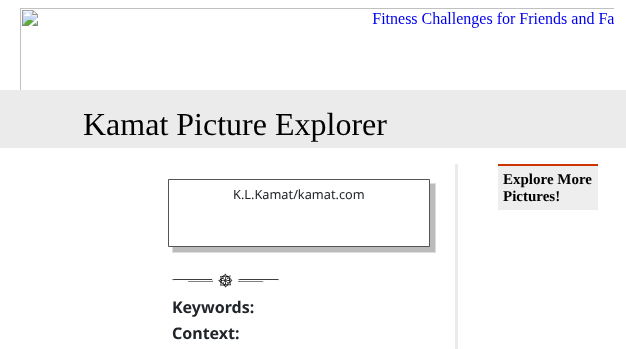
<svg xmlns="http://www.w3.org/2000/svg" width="626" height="349">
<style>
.a{font:32px Liberation Serif;fill:#000}
.b{font:12.75px Noto Sans;fill:#212529}
.c{font:bold 16px Noto Sans;fill:#212529}
.d{font:bold 15px Liberation Serif;fill:#000}
</style>
<rect width="100%" height="100%" fill="#fff"/>
<image href="1.png" x="20" y="8" width="594" height="82"/>
<path fill="#ebebeb" d="M0 90h626v58H0z"/>
<path fill="#bbb" stroke="#ddd" d="M172.5 183.5h263v69H172.5z"/>
<path fill="#fff" d="M172 183h257v63H172z"/>
<path fill="none" stroke="#555" d="M168.5 179.5h261v67H168.5z"/>
<image href="2.png" x="172" y="273" width="107" height="15"/>
<path fill="#ebebeb" d="M455 164h3v185H455z"/>
<path fill="#eee" d="M498 166h100v44H498z"/>
<path fill="#c30" d="M498 164h100v2H498z"/>
<text class="a" x="83" y="135">Kamat Picture Explorer</text>
<text class="b" x="233" y="199">K.L.Kamat/kamat.com</text>
<text class="c" x="172" y="313">Keywords:</text>
<text class="c" x="172" y="339">Context:</text>
<text class="d" x="503" y="184">Explore More</text>
<text class="d" x="503" y="201">Pictures!</text>
</svg>
